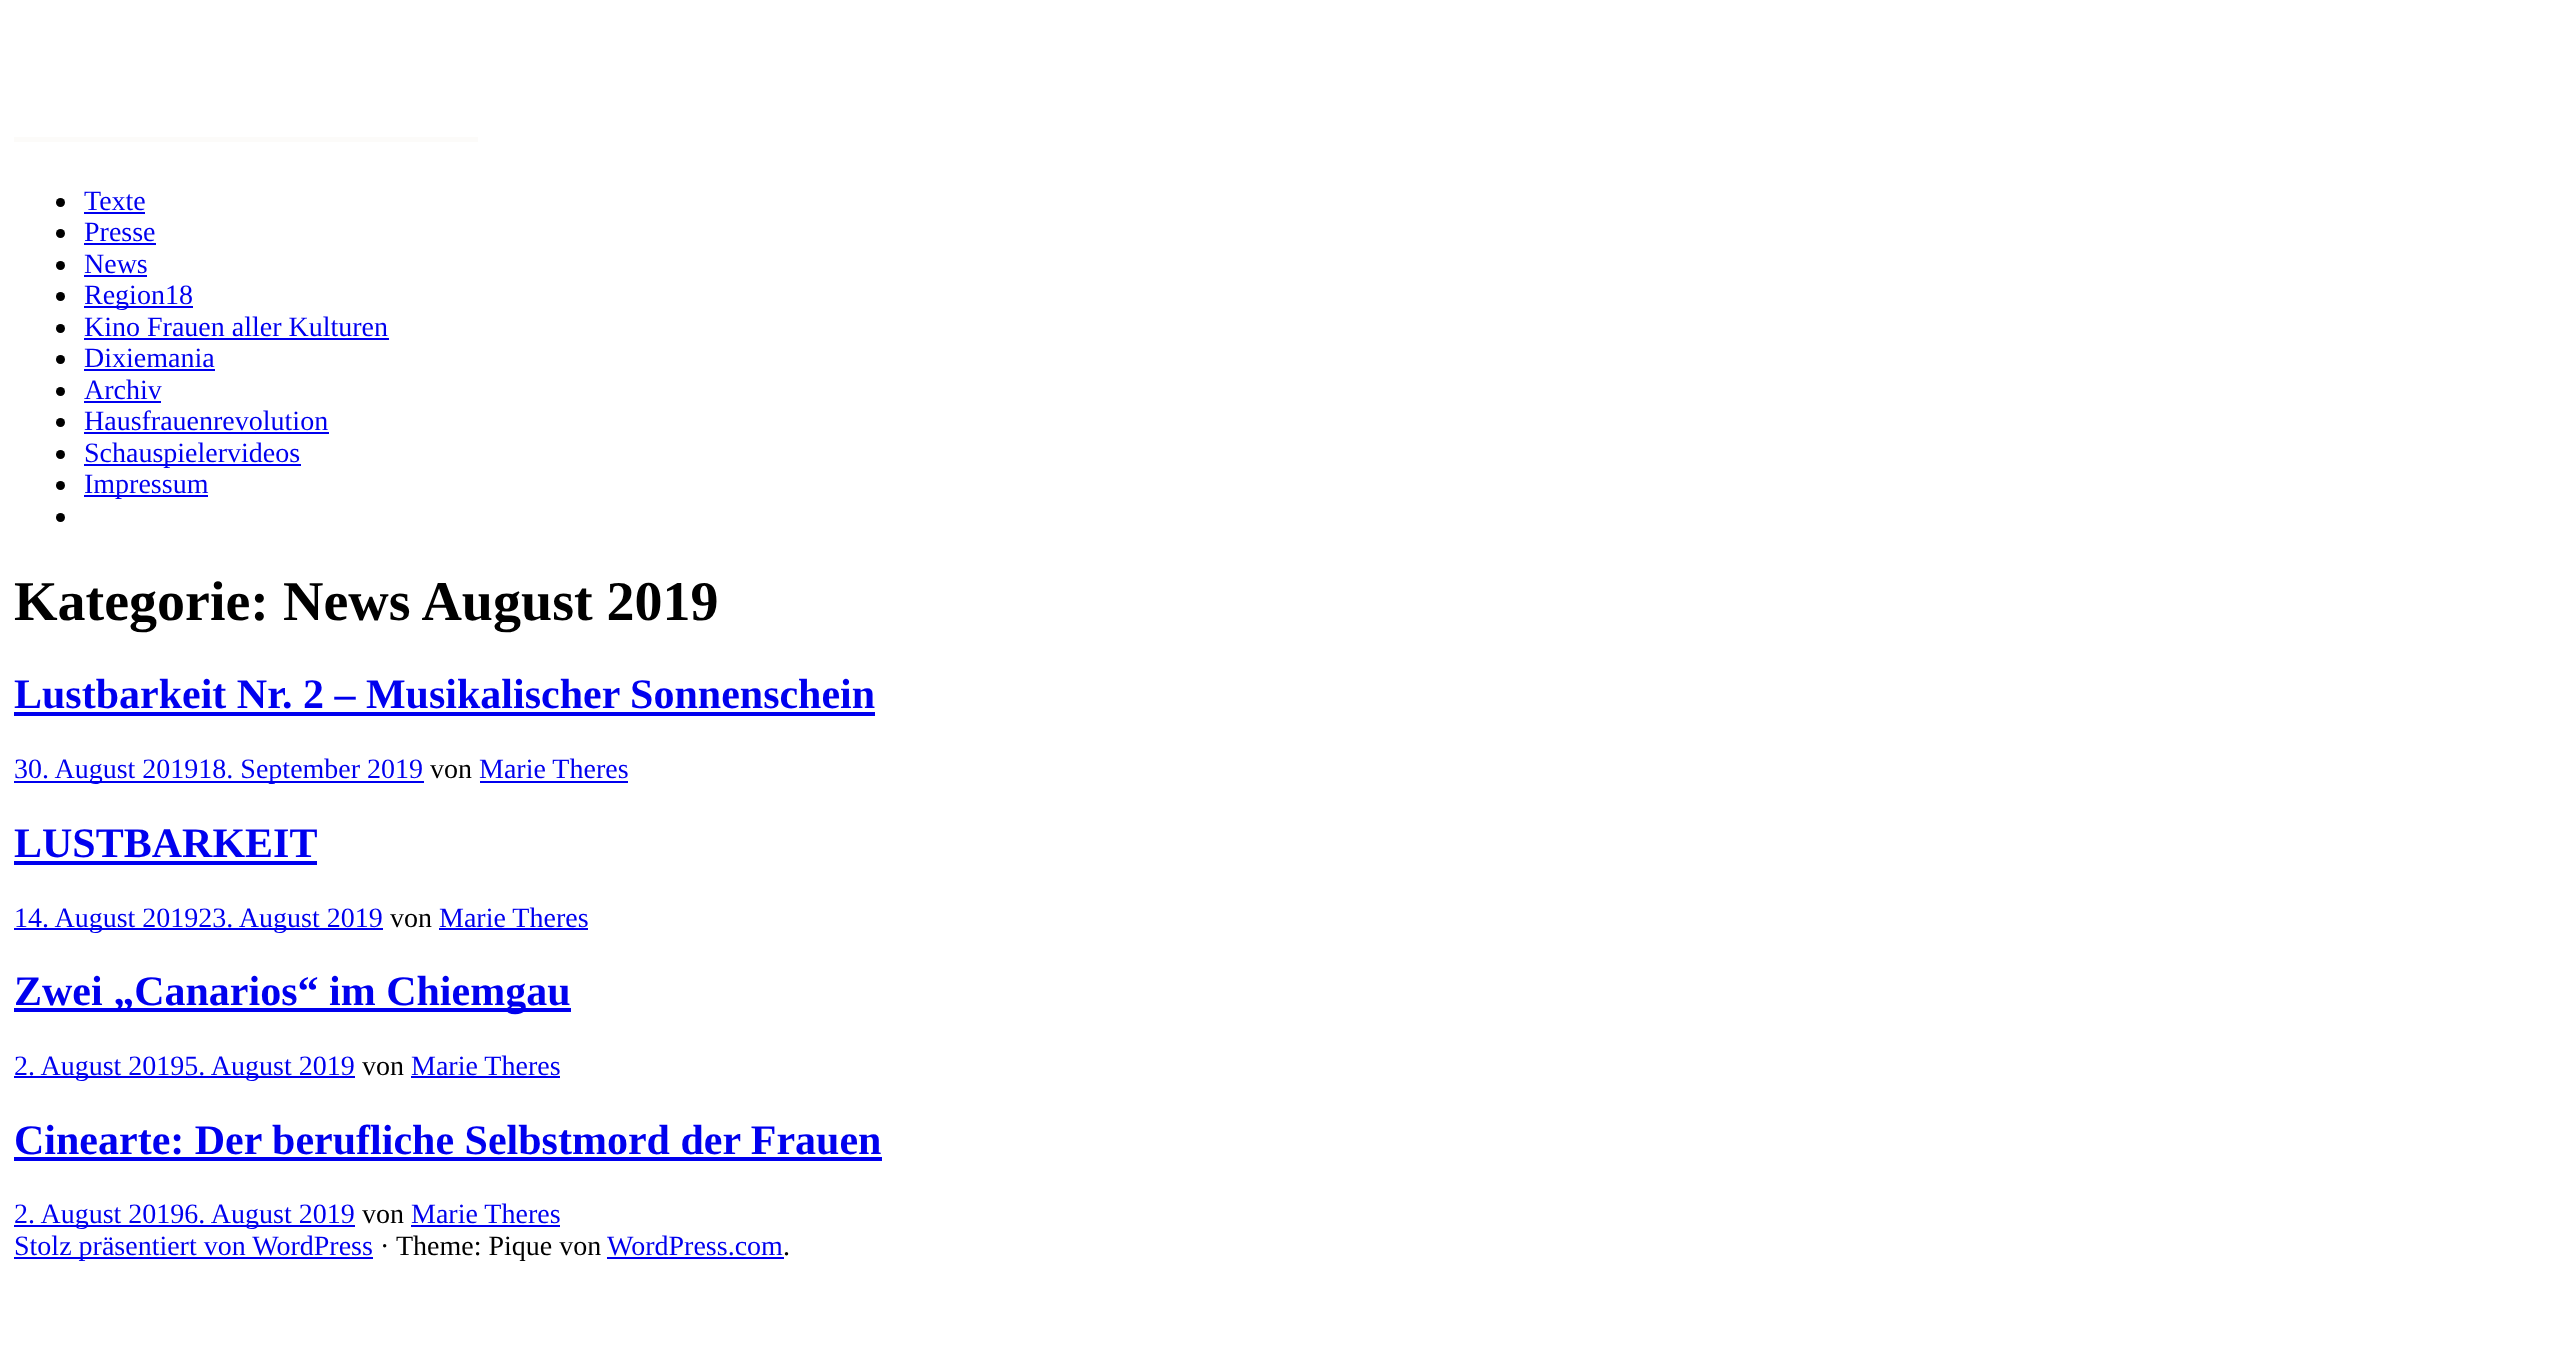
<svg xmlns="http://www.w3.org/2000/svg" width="2568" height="1366">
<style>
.a{font:28px Liberation Serif;fill:#00e}
.b{font:bold 56px Liberation Serif;fill:#000}
.c{font:bold 42px Liberation Serif;fill:#00e}
.d{font:28px Liberation Serif;fill:#000}
</style>
<rect width="100%" height="100%" fill="#fff"/>
<path fill="#fcfbf9" d="M14 137h464v5H14z"/>
<circle fill="#000" cx="60.5" cy="202.5" r="4.5"/>
<path fill="#00e" d="M84 212h61v2H84z"/>
<circle fill="#000" cx="60.5" cy="233.5" r="4.5"/>
<path fill="#00e" d="M84 243h72v2H84z"/>
<circle fill="#000" cx="60.5" cy="265.5" r="4.5"/>
<path fill="#00e" d="M84 275h63v2H84z"/>
<circle fill="#000" cx="60.5" cy="296.5" r="4.5"/>
<path fill="#00e" d="M84 306h109v2H84z"/>
<circle fill="#000" cx="60.5" cy="328.5" r="4.5"/>
<path fill="#00e" d="M84 338h305v2H84z"/>
<circle fill="#000" cx="60.5" cy="359.5" r="4.5"/>
<path fill="#00e" d="M84 369h131v2H84z"/>
<circle fill="#000" cx="60.5" cy="391.5" r="4.5"/>
<path fill="#00e" d="M84 401h77v2H84z"/>
<circle fill="#000" cx="60.5" cy="422.5" r="4.5"/>
<path fill="#00e" d="M84 432h245v2H84z"/>
<circle fill="#000" cx="60.5" cy="454.5" r="4.5"/>
<path fill="#00e" d="M84 464h217v2H84z"/>
<circle fill="#000" cx="60.5" cy="485.5" r="4.5"/>
<path fill="#00e" d="M84 495h124v2H84z"/>
<circle fill="#000" cx="60.5" cy="517.5" r="4.5"/>
<path fill="#00e" d="M14 712h861v4H14z"/>
<path fill="#00e" d="M14 781h410v2H14z"/>
<path fill="#00e" d="M480 781h148v2H480z"/>
<path fill="#00e" d="M14 861h303v4H14z"/>
<path fill="#00e" d="M14 928h369v2H14z"/>
<path fill="#00e" d="M439 928h149v2H439z"/>
<path fill="#00e" d="M14 1008h557v4H14z"/>
<path fill="#00e" d="M14 1076h341v2H14z"/>
<path fill="#00e" d="M411 1076h149v2H411z"/>
<path fill="#00e" d="M14 1157h868v4H14z"/>
<path fill="#00e" d="M14 1225h341v2H14z"/>
<path fill="#00e" d="M411 1225h149v2H411z"/>
<path fill="#00e" d="M14 1257h359v2H14z"/>
<path fill="#00e" d="M607 1257h177v2H607z"/>
<text class="a" x="84" y="210">Texte</text>
<text class="a" x="84" y="241">Presse</text>
<text class="a" x="84" y="273">News</text>
<text class="a" x="84" y="304">Region18</text>
<text class="a" x="84" y="336">Kino Frauen aller Kulturen</text>
<text class="a" x="84" y="367">Dixiemania</text>
<text class="a" x="84" y="399">Archiv</text>
<text class="a" x="84" y="430">Hausfrauenrevolution</text>
<text class="a" x="84" y="462">Schauspielervideos</text>
<text class="a" x="84" y="493">Impressum</text>
<text class="b" x="14" y="620">Kategorie: News August 2019</text>
<text class="c" x="14" y="708">Lustbarkeit Nr. 2 – Musikalischer Sonnenschein</text>
<text class="a" x="14" y="778">30. August 201918. September 2019</text>
<text class="d" x="430" y="778">von</text>
<text class="a" x="479" y="778">Marie Theres</text>
<text class="c" x="14" y="857">LUSTBARKEIT</text>
<text class="a" x="14" y="927">14. August 201923. August 2019</text>
<text class="d" x="390" y="927">von</text>
<text class="a" x="439" y="927">Marie Theres</text>
<text class="c" x="14" y="1005">Zwei „Canarios“ im Chiemgau</text>
<text class="a" x="14" y="1075">2. August 20195. August 2019</text>
<text class="d" x="362" y="1075">von</text>
<text class="a" x="411" y="1075">Marie Theres</text>
<text class="c" x="14" y="1154">Cinearte: Der berufliche Selbstmord der Frauen</text>
<text class="a" x="14" y="1223">2. August 20196. August 2019</text>
<text class="d" x="362" y="1223">von</text>
<text class="a" x="411" y="1223">Marie Theres</text>
<text class="a" x="14" y="1255">Stolz präsentiert von WordPress</text>
<text class="d" x="380" y="1255">·</text>
<text class="d" x="396" y="1255">Theme: Pique von</text>
<text class="a" x="607" y="1255">WordPress.com</text>
<text class="d" x="783" y="1255">.</text>
</svg>
